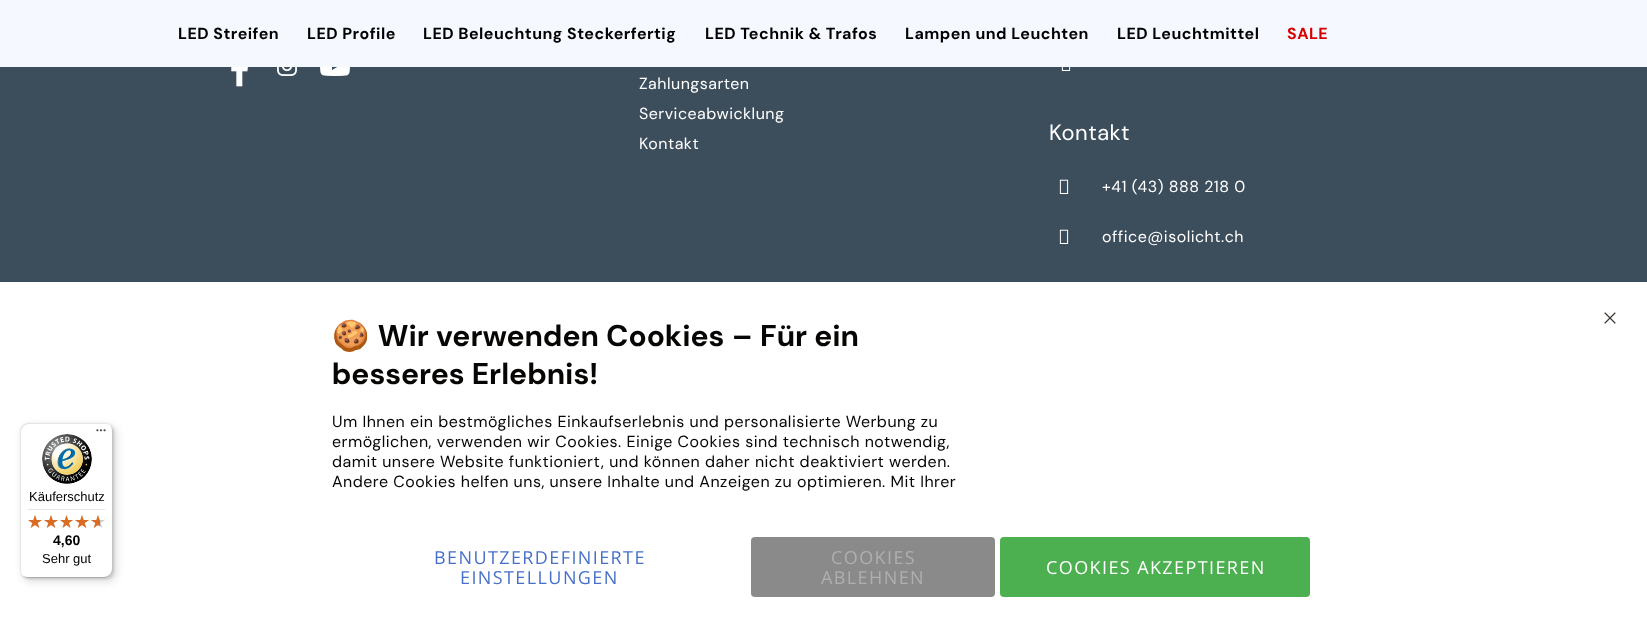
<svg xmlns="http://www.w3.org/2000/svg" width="1647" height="632">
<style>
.a{font:bold 16px DM Sans;letter-spacing:0.48px;fill:#000}
.b{font:bold 16px DM Sans;letter-spacing:0.48px;fill:#d70000}
.c{font:16px DM Sans;letter-spacing:0.48px;fill:#fff}
.d{font:22px 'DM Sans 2';letter-spacing:0.48px;fill:#fff}
.e{font:13px Liberation Sans;fill:#000}
.f{font:bold 14px Liberation Sans;fill:#000}
.g{font:30px Noto Color Emoji;letter-spacing:0.48px;fill:#070605}
.h{font:bold 30px 'DM Sans 2';letter-spacing:0.48px;fill:#070605}
.i{font:16px DM Sans;letter-spacing:0.48px;fill:#070605}
.j{font:18px Open Sans;letter-spacing:1.4px;fill:#4670c9}
.k{font:18px Open Sans;letter-spacing:1.4px;fill:#afafaf}
.l{font:18px Open Sans;letter-spacing:1.4px;fill:#fff}
</style>
<rect width="100%" height="100%" fill="#3c4d5c"/>
<path fill="#f5f8ff" d="M0 0h1647v67H0z"/>
<image href="1.png" x="231" y="67" width="17" height="20"/>
<image href="2.png" x="277" y="67" width="20" height="9"/>
<image href="3.png" x="320" y="67" width="30" height="9"/>
<image href="4.png" x="1061" y="67" width="10" height="4"/>
<image href="5.png" x="1059" y="179" width="10" height="15"/>
<image href="5.png" x="1059" y="229" width="10" height="15"/>
<path fill="#fff" d="M0 282h1647v350H0z"/>
<rect fill="#00000026" filter="blur(4px)" x="23" y="426" width="93" height="155" rx="8"/>
<rect fill="#00000026" filter="blur(1px)" x="21" y="424" width="93" height="155" rx="8"/>
<rect fill="#fff" x="20" y="423" width="93" height="155" rx="8"/>
<path fill="#e5e5e5" d="M29 424h77c2 0 4 1 6 3c-2-2-4-4-7-4h-77c-4 0-8 4-8 8v139c0 3 2 5 4 7c-2-2-3-4-3-6v-139c0-4 4-8 8-8z"/>
<path fill="#ccc" d="M21 574c2 2 4 4 7 4h77c4 0 8-4 8-8v-139c0-3-2-5-4-7c2 2 3 4 3 6v139c0 4-4 8-8 8h-77c-2 0-4-1-6-3z"/>
<path fill="#32323233" d="M22 575c1 2 4 3 6 3h77c4 0 8-4 8-8v-139c0-2-1-5-3-6c1 1 2 3 2 5v139c0 5-3 8-8 8h-77c-2 0-4-1-5-2z"/>
<path fill="#ffffff4d" d="M104 578h1c4 0 8-4 8-8v-139c0-2-1-5-3-6c1 1 2 3 2 5v140c0 4-3 8-8 8z"/>
<image href="6.png" x="96" y="429" width="10" height="3"/>
<image href="7.png" x="42" y="434" width="50" height="50"/>
<path fill="#e5e5e5" d="M28 509h77v1H28z"/>
<image href="8.png" x="28" y="515" width="14" height="13"/>
<image href="8.png" x="44" y="515" width="14" height="13"/>
<image href="9.png" x="60" y="515" width="13" height="13"/>
<image href="8.png" x="75" y="515" width="14" height="13"/>
<image href="8.png" x="91" y="515" width="14" height="13"/>
<image href="10.png" x="28" y="515" width="14" height="13"/>
<image href="10.png" x="44" y="515" width="14" height="13"/>
<image href="11.png" x="60" y="515" width="13" height="13"/>
<image href="10.png" x="75" y="515" width="14" height="13"/>
<image href="12.png" x="91" y="515" width="9" height="13"/>
<rect fill="#8a8a8a" x="751" y="537" width="244" height="60" rx="4"/>
<rect fill="#4caf50" x="1000" y="537" width="310" height="60" rx="4"/>
<image href="13.png" x="1604" y="312" width="12" height="12"/>
<text class="a" x="178" y="39">LED Streifen</text>
<text class="a" x="307" y="39">LED Profile</text>
<text class="a" x="423" y="39">LED Beleuchtung Steckerfertig</text>
<text class="a" x="705" y="39">LED Technik &amp; Trafos</text>
<text class="a" x="905" y="39">Lampen und Leuchten</text>
<text class="a" x="1117" y="39">LED Leuchtmittel</text>
<text class="b" x="1287" y="39">SALE</text>
<text class="c" x="639" y="89">Zahlungsarten</text>
<text class="c" x="639" y="119">Serviceabwicklung</text>
<text class="c" x="639" y="149">Kontakt</text>
<text class="d" x="1049" y="140">Kontakt</text>
<text class="c" x="1102" y="192">+41 (43) 888 218 0</text>
<text class="c" x="1102" y="242">office@isolicht.ch</text>
<text class="e" x="29" y="501">Käuferschutz</text>
<text class="f" x="53" y="545">4,60</text>
<text class="e" x="42" y="563">Sehr gut</text>
<text class="g" x="332" y="346">🍪</text>
<text class="h" x="378" y="346">Wir verwenden Cookies – Für ein</text>
<text class="h" x="332" y="384">besseres Erlebnis!</text>
<text class="i" x="332" y="427">Um Ihnen ein bestmögliches Einkaufserlebnis und personalisierte Werbung zu</text>
<text class="i" x="332" y="447">ermöglichen, verwenden wir Cookies. Einige Cookies sind technisch notwendig,</text>
<text class="i" x="332" y="467">damit unsere Website funktioniert, und können daher nicht deaktiviert werden.</text>
<text class="i" x="332" y="487">Andere Cookies helfen uns, unsere Inhalte und Anzeigen zu optimieren. Mit Ihrer</text>
<text class="j" x="434" y="564">BENUTZERDEFINIERTE</text>
<text class="j" x="460" y="584">EINSTELLUNGEN</text>
<text class="k" x="831" y="564">COOKIES</text>
<text class="k" x="821" y="584">ABLEHNEN</text>
<text class="l" x="1046" y="574">COOKIES AKZEPTIEREN</text>
</svg>
